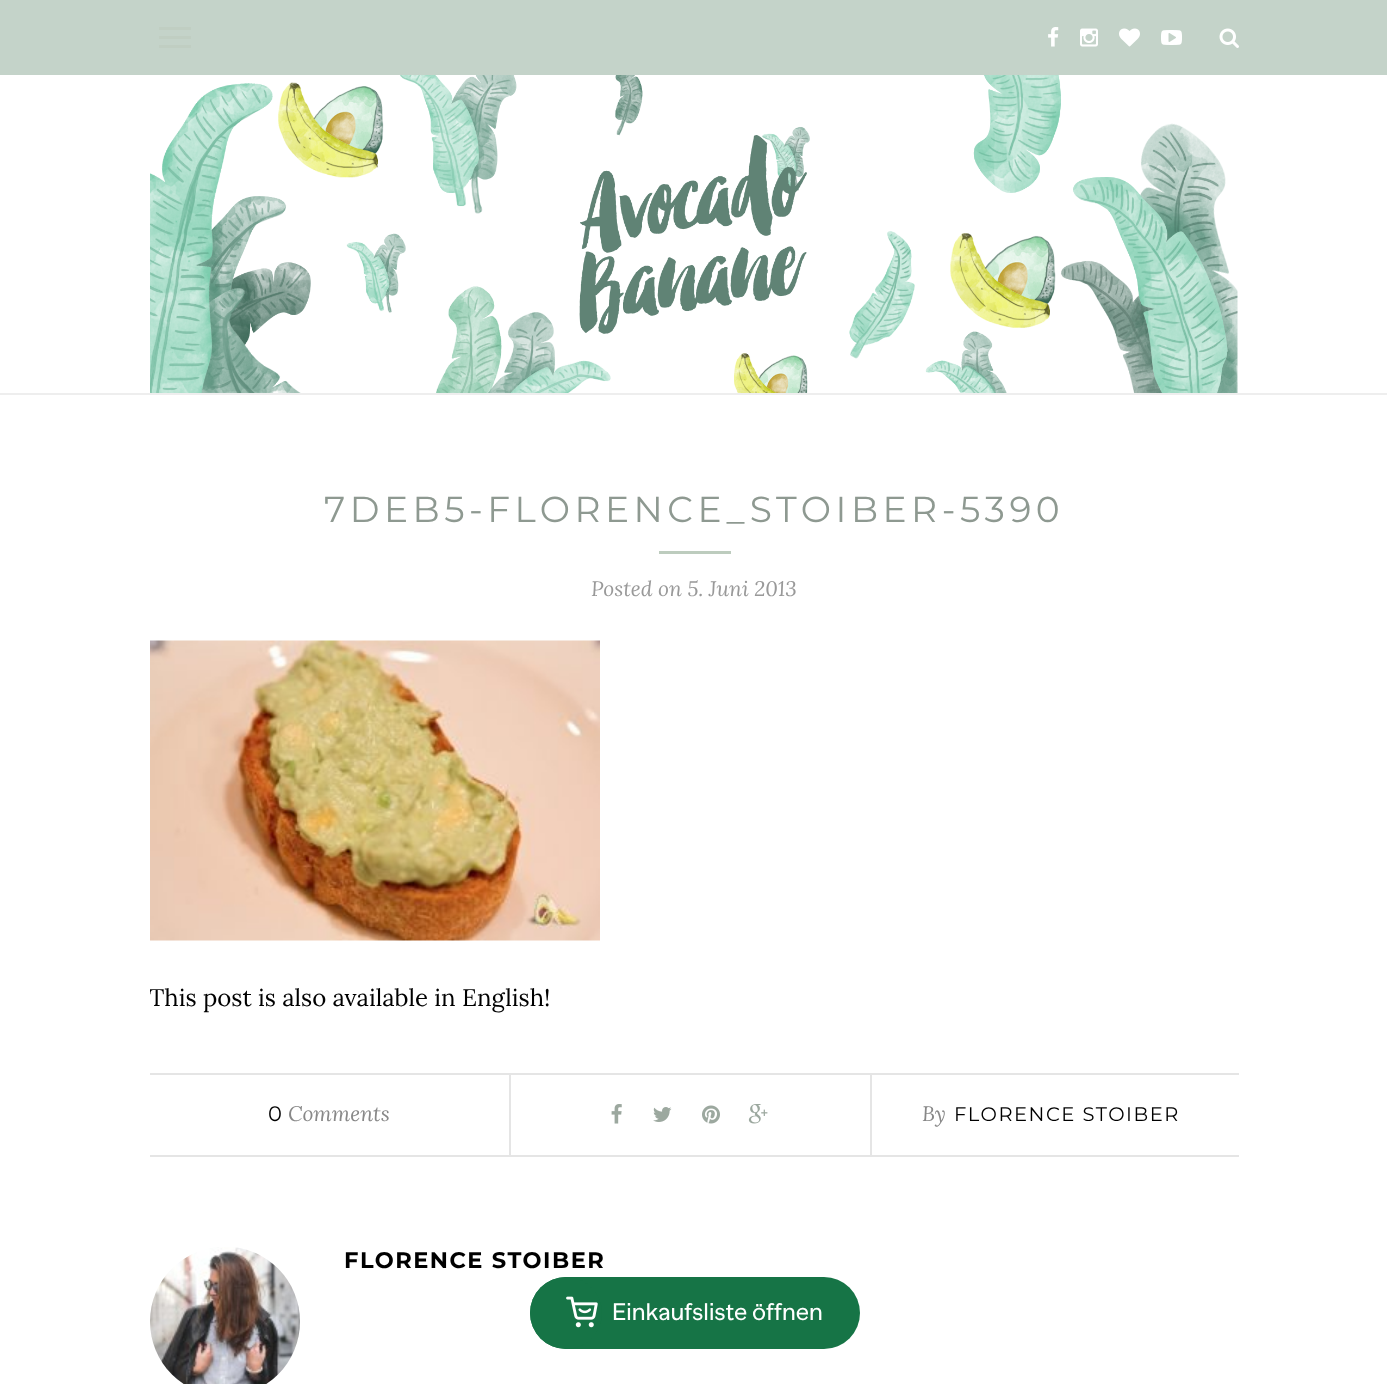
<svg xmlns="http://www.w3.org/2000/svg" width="1387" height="1384">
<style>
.a{font:36px Montserrat;letter-spacing:4.5px;fill:#8e9991}
.b{font:italic 21px Lora;fill:#999}
.c{font:24px Lora;fill:#000}
.d{font:21px Montserrat;fill:#000}
.e{font:italic 21px Lora;fill:#888}
.f{font:19.5px Montserrat;letter-spacing:1.5px;fill:#000}
.g{font:bold 22.5px Montserrat;letter-spacing:1.5px;fill:#000}
.h{font:24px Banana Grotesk;fill:#fff}
</style>
<defs>
<clipPath id="clip1"><path d="M150 485h1089v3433H150z"/></clipPath>
</defs>
<rect width="100%" height="100%" fill="#fff"/>
<path fill="#c4d3c9" d="M0 0h1387v75H0z"/>
<path fill="#c0cec2" d="M159 27h32v3H159z"/>
<path fill="#c0cec2" d="M159 36h32v3H159z"/>
<path fill="#c0cec2" d="M159 45h32v3H159z"/>
<image href="1.png" x="1048" y="27" width="11" height="20"/>
<image href="2.png" x="1080" y="28" width="18" height="19"/>
<image href="3.png" x="1119" y="28" width="21" height="19"/>
<image href="4.png" x="1161" y="30" width="21" height="15"/>
<image href="5.png" x="1219" y="28" width="20" height="20"/>
<path fill="#eee" d="M0 393h1387v2H0z"/>
<image href="6.png" x="150" y="75" width="1088" height="318"/>
<path fill="#bdccbe" d="M659 551h72v3H659z"/>
<image href="7.png" x="150" y="640" width="450" height="301"/>
<path fill="#e5e5e5" d="M150 1073h1089v2H150z"/>
<path fill="#e5e5e5" d="M150 1155h1089v2H150z"/>
<path fill="#e5e5e5" d="M509 1074h2v81H509z"/>
<image href="8.png" x="611" y="1104" width="11" height="20"/>
<image href="9.png" x="653" y="1107" width="19" height="15"/>
<image href="10.png" x="702" y="1105" width="18" height="19"/>
<image href="11.png" x="748" y="1104" width="20" height="20"/>
<path fill="#e5e5e5" d="M870 1074h2v81H870z"/>
<image href="12.png" x="150" y="1247" width="150" height="137"/>
<rect fill="#167446" x="530" y="1277" width="330" height="72" rx="36"/>
<circle fill="#167446" cx="566" cy="1313" r="36"/>
<image href="13.png" x="566" y="1296" width="32" height="32"/>
<text class="a" x="324" y="522">7DEB5-FLORENCE_STOIBER-5390</text>
<text class="b" x="591" y="596">Posted on 5. Juni 2013</text>
<g clip-path="url(#clip1)">
<text class="c" x="149" y="1006">This post is also available in English!</text>
</g>
<text class="d" x="268" y="1121">0</text>
<text class="e" x="288" y="1121">Comments</text>
<text class="e" x="922" y="1121">By</text>
<text class="f" x="954" y="1121">FLORENCE STOIBER</text>
<text class="g" x="344" y="1268">FLORENCE STOIBER</text>
<text class="h" x="612" y="1320">Einkaufsliste öffnen</text>
</svg>
